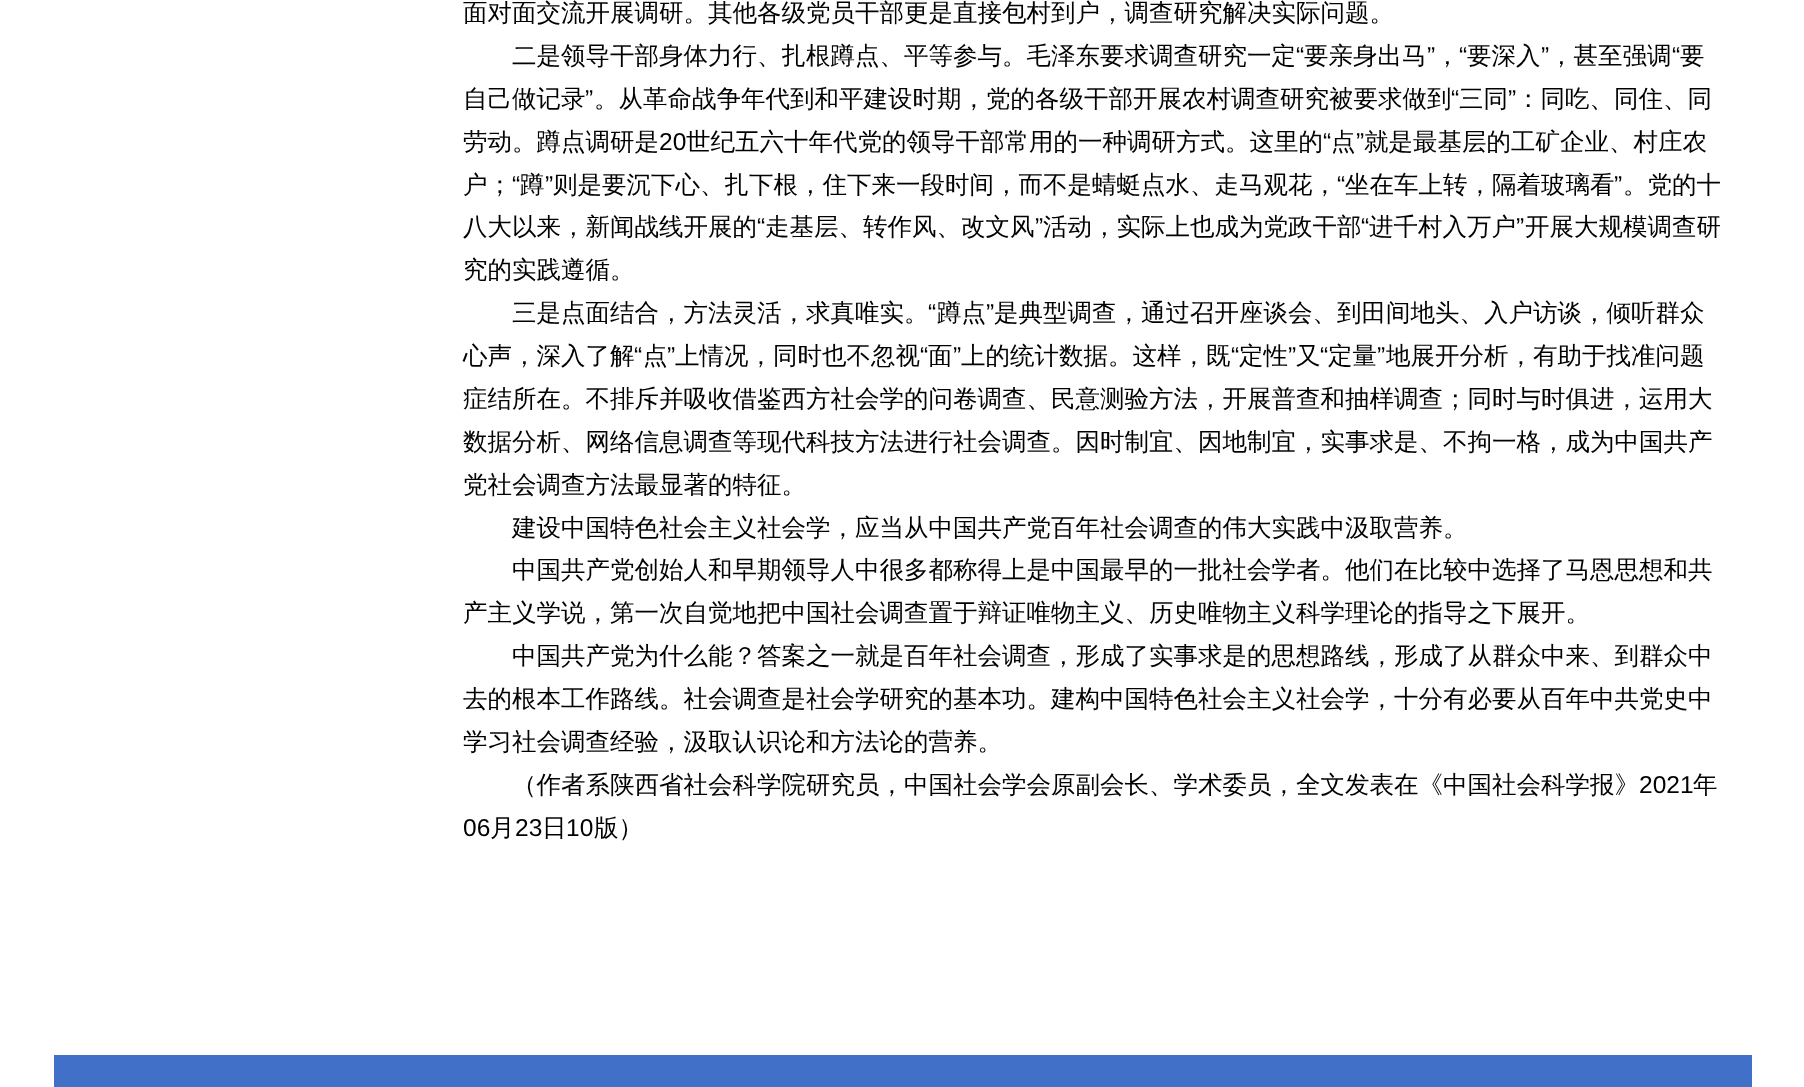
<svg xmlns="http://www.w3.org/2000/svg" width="1804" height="1087">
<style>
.a{font:500 24.5px WenQuanYi Zen Hei;fill:#000}
.b{font:24.5px Liberation Sans;fill:#000}
</style>
<rect width="100%" height="100%" fill="#fff"/>
<path fill="#4070c8" d="M54 1055h1698v32H54z"/>
<text class="a" x="463" y="21">面对面交流开展调研。其他各级党员干部更是直接包村到户，调查研究解决实际问题。</text>
<text class="a" x="512" y="64">二是领导干部身体力行、扎根蹲点、平等参与。毛泽东要求调查研究一定</text>
<text class="b" x="1296" y="64">“</text>
<text class="a" x="1304" y="64">要亲身出马</text>
<text class="b" x="1427" y="64">”</text>
<text class="b" x="1459" y="64">“</text>
<text class="a" x="1467" y="64">要深入</text>
<text class="b" x="1541" y="64">”</text>
<text class="a" x="1549" y="64">，甚至强调</text>
<text class="b" x="1672" y="64">“</text>
<text class="a" x="1680" y="64">要</text>
<text class="a" x="1435" y="64">，</text>
<text class="a" x="463" y="107">自己做记录</text>
<text class="b" x="585" y="107">”</text>
<text class="a" x="594" y="107">。从革命战争年代到和平建设时期，党的各级干部开展农村调查研究被要求做到</text>
<text class="b" x="1451" y="107">“</text>
<text class="a" x="1459" y="107">三同</text>
<text class="b" x="1508" y="107">”</text>
<text class="a" x="1516" y="107">：同吃、同住、同</text>
<text class="a" x="463" y="150">劳动。蹲点调研是</text>
<text class="b" x="659" y="150">20</text>
<text class="a" x="686" y="150">世纪五六十年代党的领导干部常用的一种调研方式。这里的</text>
<text class="b" x="1323" y="150">“</text>
<text class="a" x="1331" y="150">点</text>
<text class="b" x="1356" y="150">”</text>
<text class="a" x="1364" y="150">就是最基层的工矿企业、村庄农</text>
<text class="a" x="463" y="193">户；</text>
<text class="b" x="512" y="193">“</text>
<text class="a" x="520" y="193">蹲</text>
<text class="b" x="545" y="193">”</text>
<text class="a" x="553" y="193">则是要沉下心、扎下根，住下来一段时间，而不是蜻蜓点水、走马观花，</text>
<text class="b" x="1337" y="193">“</text>
<text class="a" x="1345" y="193">坐在车上转，隔着玻璃看</text>
<text class="b" x="1614" y="193">”</text>
<text class="a" x="1623" y="193">。党的十</text>
<text class="a" x="463" y="235">八大以来，新闻战线开展的</text>
<text class="b" x="757" y="235">“</text>
<text class="a" x="765" y="235">走基层、转作风、改文风</text>
<text class="b" x="1035" y="235">”</text>
<text class="a" x="1043" y="235">活动，实际上也成为党政干部</text>
<text class="b" x="1361" y="235">“</text>
<text class="a" x="1369" y="235">进千村入万户</text>
<text class="b" x="1516" y="235">”</text>
<text class="a" x="1525" y="235">开展大规模调查研</text>
<text class="a" x="463" y="278">究的实践遵循。</text>
<text class="a" x="512" y="321">三是点面结合，方法灵活，求真唯实。</text>
<text class="b" x="928" y="321">“</text>
<text class="a" x="937" y="321">蹲点</text>
<text class="b" x="986" y="321">”</text>
<text class="a" x="994" y="321">是典型调查，通过召开座谈会、到田间地头、入户访谈，倾听群众</text>
<text class="a" x="463" y="364">心声，深入了解</text>
<text class="b" x="634" y="364">“</text>
<text class="a" x="643" y="364">点</text>
<text class="b" x="667" y="364">”</text>
<text class="a" x="675" y="364">上情况，同时也不忽视</text>
<text class="b" x="920" y="364">“</text>
<text class="a" x="928" y="364">面</text>
<text class="b" x="953" y="364">”</text>
<text class="a" x="961" y="364">上的统计数据。这样，既</text>
<text class="b" x="1231" y="364">“</text>
<text class="a" x="1239" y="364">定性</text>
<text class="b" x="1288" y="364">”</text>
<text class="a" x="1296" y="364">又</text>
<text class="b" x="1320" y="364">“</text>
<text class="a" x="1328" y="364">定量</text>
<text class="b" x="1377" y="364">”</text>
<text class="a" x="1386" y="364">地展开分析，有助于找准问题</text>
<text class="a" x="463" y="407">症结所在。不排斥并吸收借鉴西方社会学的问卷调查、民意测验方法，开展普查和抽样调查；同时与时俱进，运用大</text>
<text class="a" x="463" y="450">数据分析、网络信息调查等现代科技方法进行社会调查。因时制宜、因地制宜，实事求是、不拘一格，成为中国共产</text>
<text class="a" x="463" y="493">党社会调查方法最显著的特征。</text>
<text class="a" x="512" y="536">建设中国特色社会主义社会学，应当从中国共产党百年社会调查的伟大实践中汲取营养。</text>
<text class="a" x="512" y="578">中国共产党创始人和早期领导人中很多都称得上是中国最早的一批社会学者。他们在比较中选择了马恩思想和共</text>
<text class="a" x="463" y="621">产主义学说，第一次自觉地把中国社会调查置于辩证唯物主义、历史唯物主义科学理论的指导之下展开。</text>
<text class="a" x="512" y="664">中国共产党为什么能？答案之一就是百年社会调查，形成了实事求是的思想路线，形成了从群众中来、到群众中</text>
<text class="a" x="463" y="707">去的根本工作路线。社会调查是社会学研究的基本功。建构中国特色社会主义社会学，十分有必要从百年中共党史中</text>
<text class="a" x="463" y="750">学习社会调查经验，汲取认识论和方法论的营养。</text>
<text class="a" x="512" y="793">（作者系陕西省社会科学院研究员，中国社会学会原副会长、学术委员，全文发表在《中国社会科学报》</text>
<text class="b" x="1639" y="793">2021</text>
<text class="a" x="1693" y="793">年</text>
<text class="b" x="463" y="836">06</text>
<text class="a" x="490" y="836">月</text>
<text class="b" x="515" y="836">23</text>
<text class="a" x="542" y="836">日</text>
<text class="b" x="566" y="836">10</text>
<text class="a" x="594" y="836">版）</text>
</svg>
